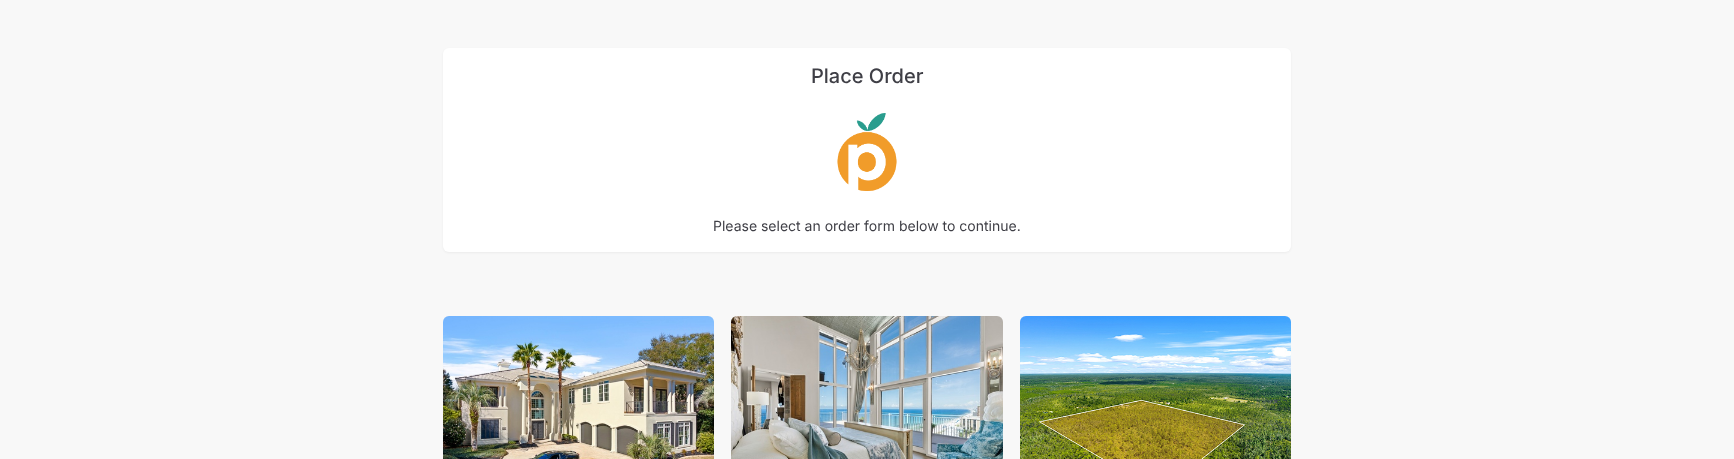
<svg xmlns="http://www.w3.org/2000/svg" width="1734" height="459">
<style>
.a{font:500 20px Inter;fill:#3f3f46}
.b{font:14px Inter;fill:#3f3f46}
</style>
<rect width="100%" height="100%" fill="#f8f8f8"/>
<rect fill="#0000000d" filter="blur(1px)" x="443" y="49" width="848" height="204" rx="6"/>
<rect fill="#fff" x="443" y="48" width="848" height="204" rx="6"/>
<image href="1.png" x="837" y="113" width="60" height="78"/>
<image href="2.png" x="443" y="316" width="271" height="143"/>
<image href="3.png" x="731" y="316" width="272" height="143"/>
<image href="4.png" x="1020" y="316" width="271" height="143"/>
<text class="a" x="811" y="83">Place Order</text>
<text class="b" x="713" y="231">Please select an order form below to continue.</text>
</svg>
